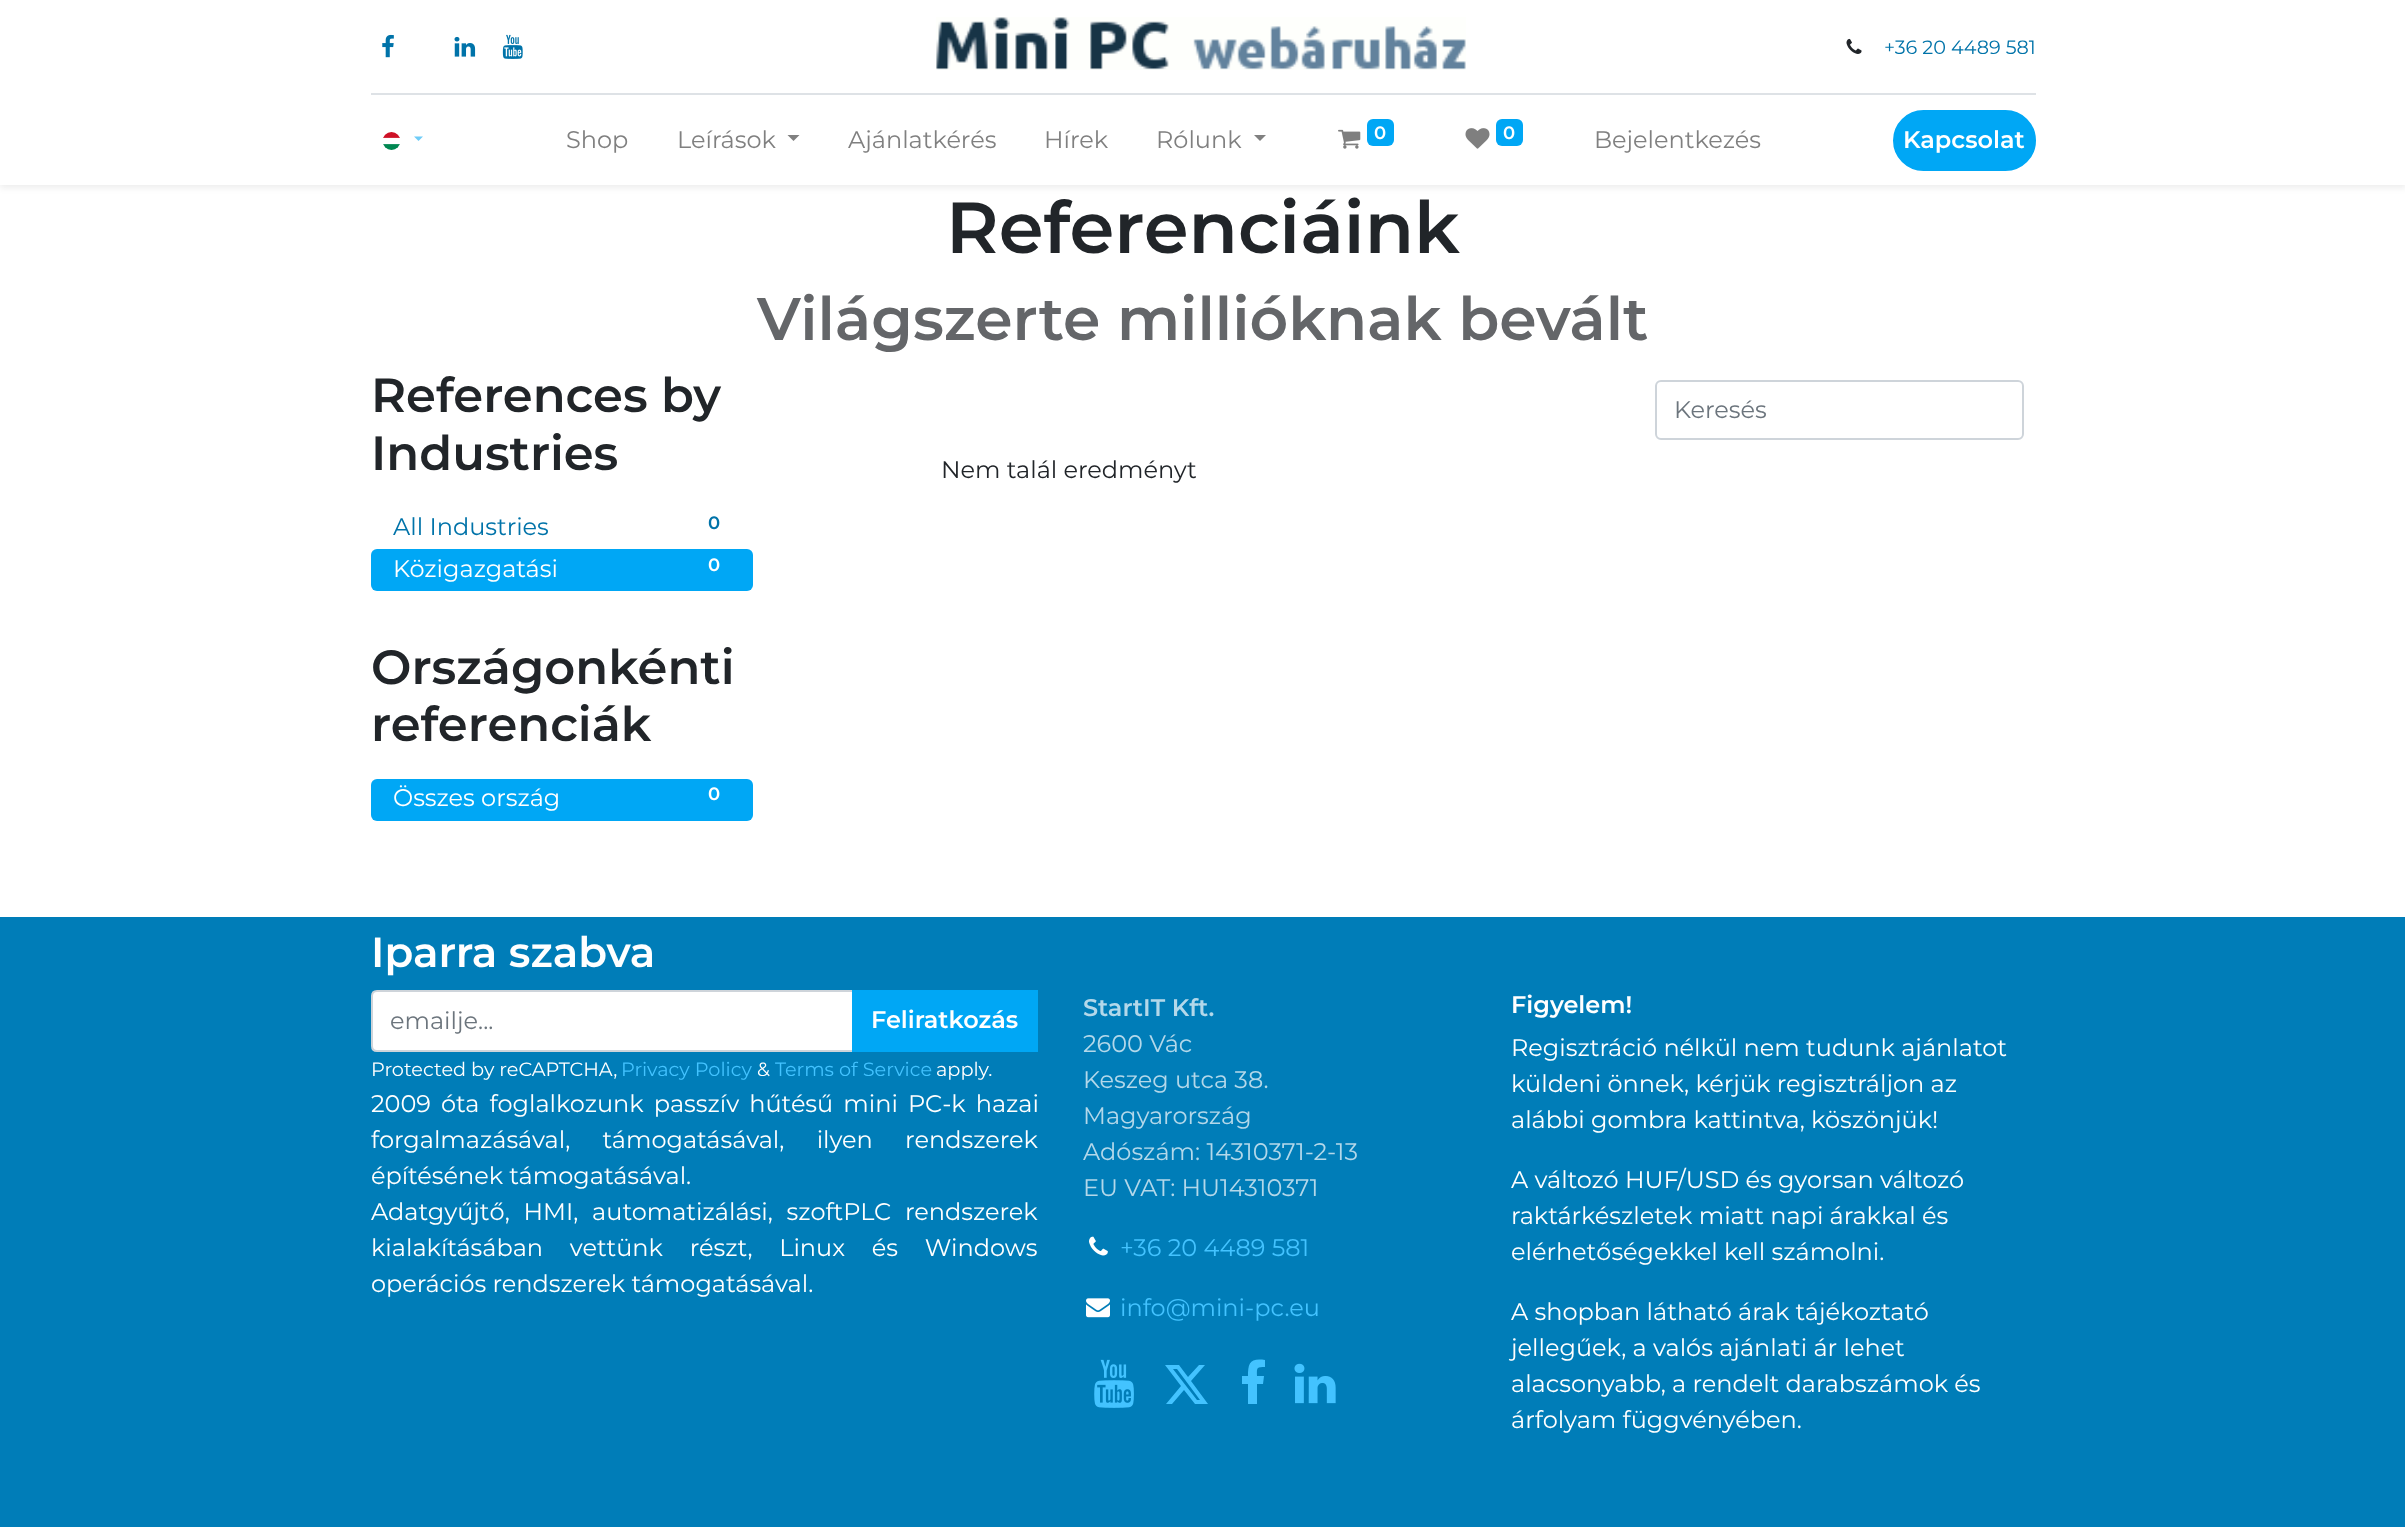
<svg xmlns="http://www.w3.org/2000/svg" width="2405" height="1527">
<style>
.a{font:19.25px Montserrat;fill:#0073a9}
.b{font:24px Montserrat;fill:#808080}
.c{font:600 18px Montserrat;fill:#fff}
.d{font:600 24px Montserrat;fill:#fff}
.e{font:600 72px Montserrat;fill:#212529}
.f{font:600 60px Montserrat;fill:#646669}
.g{font:600 48px Montserrat;fill:#212529}
.h{font:24px Montserrat;fill:#0073a9}
.i{font:600 18px Montserrat;fill:#0073a9}
.j{font:24px Montserrat;fill:#fff}
.k{font:24px Montserrat;fill:#6c757d}
.l{font:24px Montserrat;fill:#212529}
.m{font:600 42px Montserrat;fill:#fff}
.n{font:19.25px Montserrat;fill:#fff}
.o{font:19.25px Montserrat;fill:#43c3ff}
.p{font:600 24px Montserrat;fill:#b3d8ea}
.q{font:24px Montserrat;fill:#b3d8ea}
.r{font:24px Montserrat;fill:#43c3ff}
</style>
<rect width="100%" height="100%" fill="#fff"/>
<path fill="#00000012" filter="blur(3px)" d="M0 3h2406v185H0z"/>
<path fill="#fff" d="M0 0h2405v185H0z"/>
<image href="1.png" x="382" y="34" width="12" height="24"/>
<image href="2.png" x="454" y="36" width="22" height="21"/>
<image href="3.png" x="502" y="34" width="21" height="25"/>
<image href="4.png" x="936" y="17" width="530" height="53"/>
<image href="5.png" x="1846" y="38" width="16" height="16"/>
<path fill="#dee2e6" d="M371 93h1665v2H371z"/>
<image href="6.png" x="383" y="132" width="17" height="18"/>
<path fill="#6eccf8" d="M414 136.5h9l-4.5 4.5z"/>
<path fill="#808080" d="M787.5 135h12l-6 6z"/>
<path fill="#808080" d="M1254 135h12l-6 6z"/>
<image href="7.png" x="1338" y="129" width="23" height="20"/>
<rect fill="#00a7f5" x="1367" y="119" width="27" height="27" rx="6"/>
<image href="8.png" x="1465" y="128" width="25" height="21"/>
<rect fill="#00a7f5" x="1496" y="119" width="27" height="27" rx="6"/>
<rect fill="#00a7f5" stroke="#00a7f5" stroke-width="2" x="1894" y="111" width="141" height="59" rx="29.5"/>
<rect fill="#00a7f5" x="371" y="549" width="382" height="42" rx="6"/>
<rect fill="#00a7f5" x="371" y="779" width="382" height="42" rx="6"/>
<rect fill="none" stroke="#ced4da" stroke-width="2" x="1656" y="381" width="367" height="58" rx="5"/>
<path fill="#007db8" d="M0 917h2405v610H0z"/>
<path fill="#fff" stroke="#ced4da" stroke-width="2" d="M377 991h476v60h-476c-3 0-5-2-5-5v-50c0-3 2-5 5-5z"/>
<path fill="#00a7f5" d="M852 990h186v62H852z"/>
<image href="9.png" x="1089" y="1236" width="19" height="20"/>
<image href="10.png" x="1086" y="1298" width="24" height="20"/>
<image href="11.png" x="1094" y="1359" width="40" height="49"/>
<path fill="#43c3ff" d="M1199 1365h6l-14 16l17 23h-13l-11-14l-12 14h-6l15-18l-16-21h14l9 12zm-2 35h3l-23-31h-4z"/>
<path fill="#43c3ff" d="M1265 1360v7c-9 0-8 1-8 9h7l-1 8h-6v20h-9v-20h-6v-8h6c0-13 2-18 17-16z"/>
<image href="12.png" x="1294" y="1363" width="42" height="41"/>
<text class="a" x="1884" y="54">+36 20 4489 581</text>
<text class="b" x="566" y="148">Shop</text>
<text class="b" x="677" y="148">Leírások</text>
<text class="b" x="848" y="148">Ajánlatkérés</text>
<text class="b" x="1044" y="148">Hírek</text>
<text class="b" x="1156" y="148">Rólunk</text>
<text class="c" x="1374" y="139">0</text>
<text class="c" x="1503" y="139">0</text>
<text class="b" x="1594" y="148">Bejelentkezés</text>
<text class="d" x="1903" y="148">Kapcsolat</text>
<text class="e" x="946" y="253">Referenciáink</text>
<text class="f" x="757" y="340">Világszerte millióknak bevált</text>
<text class="g" x="371" y="412">References by</text>
<text class="g" x="371" y="470">Industries</text>
<text class="h" x="393" y="535">All Industries</text>
<text class="i" x="708" y="529">0</text>
<text class="j" x="393" y="577">Közigazgatási</text>
<text class="c" x="708" y="571">0</text>
<text class="g" x="371" y="684">Országonkénti</text>
<text class="g" x="371" y="741">referenciák</text>
<text class="j" x="393" y="806">Összes ország</text>
<text class="c" x="708" y="800">0</text>
<text class="k" x="1674" y="418">Keresés</text>
<text class="l" x="941" y="478">Nem talál eredményt</text>
<text class="m" x="371" y="967">Iparra szabva</text>
<text class="k" x="390" y="1029">emailje...</text>
<text class="d" x="871" y="1028">Feliratkozás</text>
<text class="n" x="371" y="1076">Protected by reCAPTCHA,</text>
<text class="o" x="621" y="1076">Privacy Policy</text>
<text class="n" x="757" y="1076">&amp;</text>
<text class="o" x="775" y="1076">Terms of Service</text>
<text class="n" x="936" y="1076">apply.</text>
<text class="j" x="371" y="1112" word-spacing="3.75">2009 óta foglalkozunk passzív hűtésű mini PC-k hazai</text>
<text class="j" x="371" y="1148" word-spacing="26">forgalmazásával, támogatásával, ilyen rendszerek</text>
<text class="j" x="371" y="1184">építésének támogatásával.</text>
<text class="j" x="371" y="1220" word-spacing="7.5">Adatgyűjtő, HMI, automatizálási, szoftPLC rendszerek</text>
<text class="j" x="371" y="1256" word-spacing="20.5">kialakításában vettünk részt, Linux és Windows</text>
<text class="j" x="371" y="1292">operációs rendszerek támogatásával.</text>
<text class="p" x="1083" y="1016">StartIT Kft.</text>
<text class="q" x="1083" y="1052">2600 Vác</text>
<text class="q" x="1083" y="1088">Keszeg utca 38.</text>
<text class="q" x="1083" y="1124">Magyarország</text>
<text class="q" x="1083" y="1160">Adószám: 14310371-2-13</text>
<text class="q" x="1083" y="1196">EU VAT: HU14310371</text>
<text class="r" x="1120" y="1256">+36 20 4489 581</text>
<text class="r" x="1120" y="1316">info@mini-pc.eu</text>
<text class="d" x="1511" y="1013">Figyelem!</text>
<text class="j" x="1511" y="1056">Regisztráció nélkül nem tudunk ajánlatot</text>
<text class="j" x="1511" y="1092">küldeni önnek, kérjük regisztráljon az</text>
<text class="j" x="1511" y="1128">alábbi gombra kattintva, köszönjük!</text>
<text class="j" x="1511" y="1188">A változó HUF/USD és gyorsan változó</text>
<text class="j" x="1511" y="1224">raktárkészletek miatt napi árakkal és</text>
<text class="j" x="1511" y="1260">elérhetőségekkel kell számolni.</text>
<text class="j" x="1511" y="1320">A shopban látható árak tájékoztató</text>
<text class="j" x="1511" y="1356">jellegűek, a valós ajánlati ár lehet</text>
<text class="j" x="1511" y="1392">alacsonyabb, a rendelt darabszámok és</text>
<text class="j" x="1511" y="1428">árfolyam függvényében.</text>
</svg>
